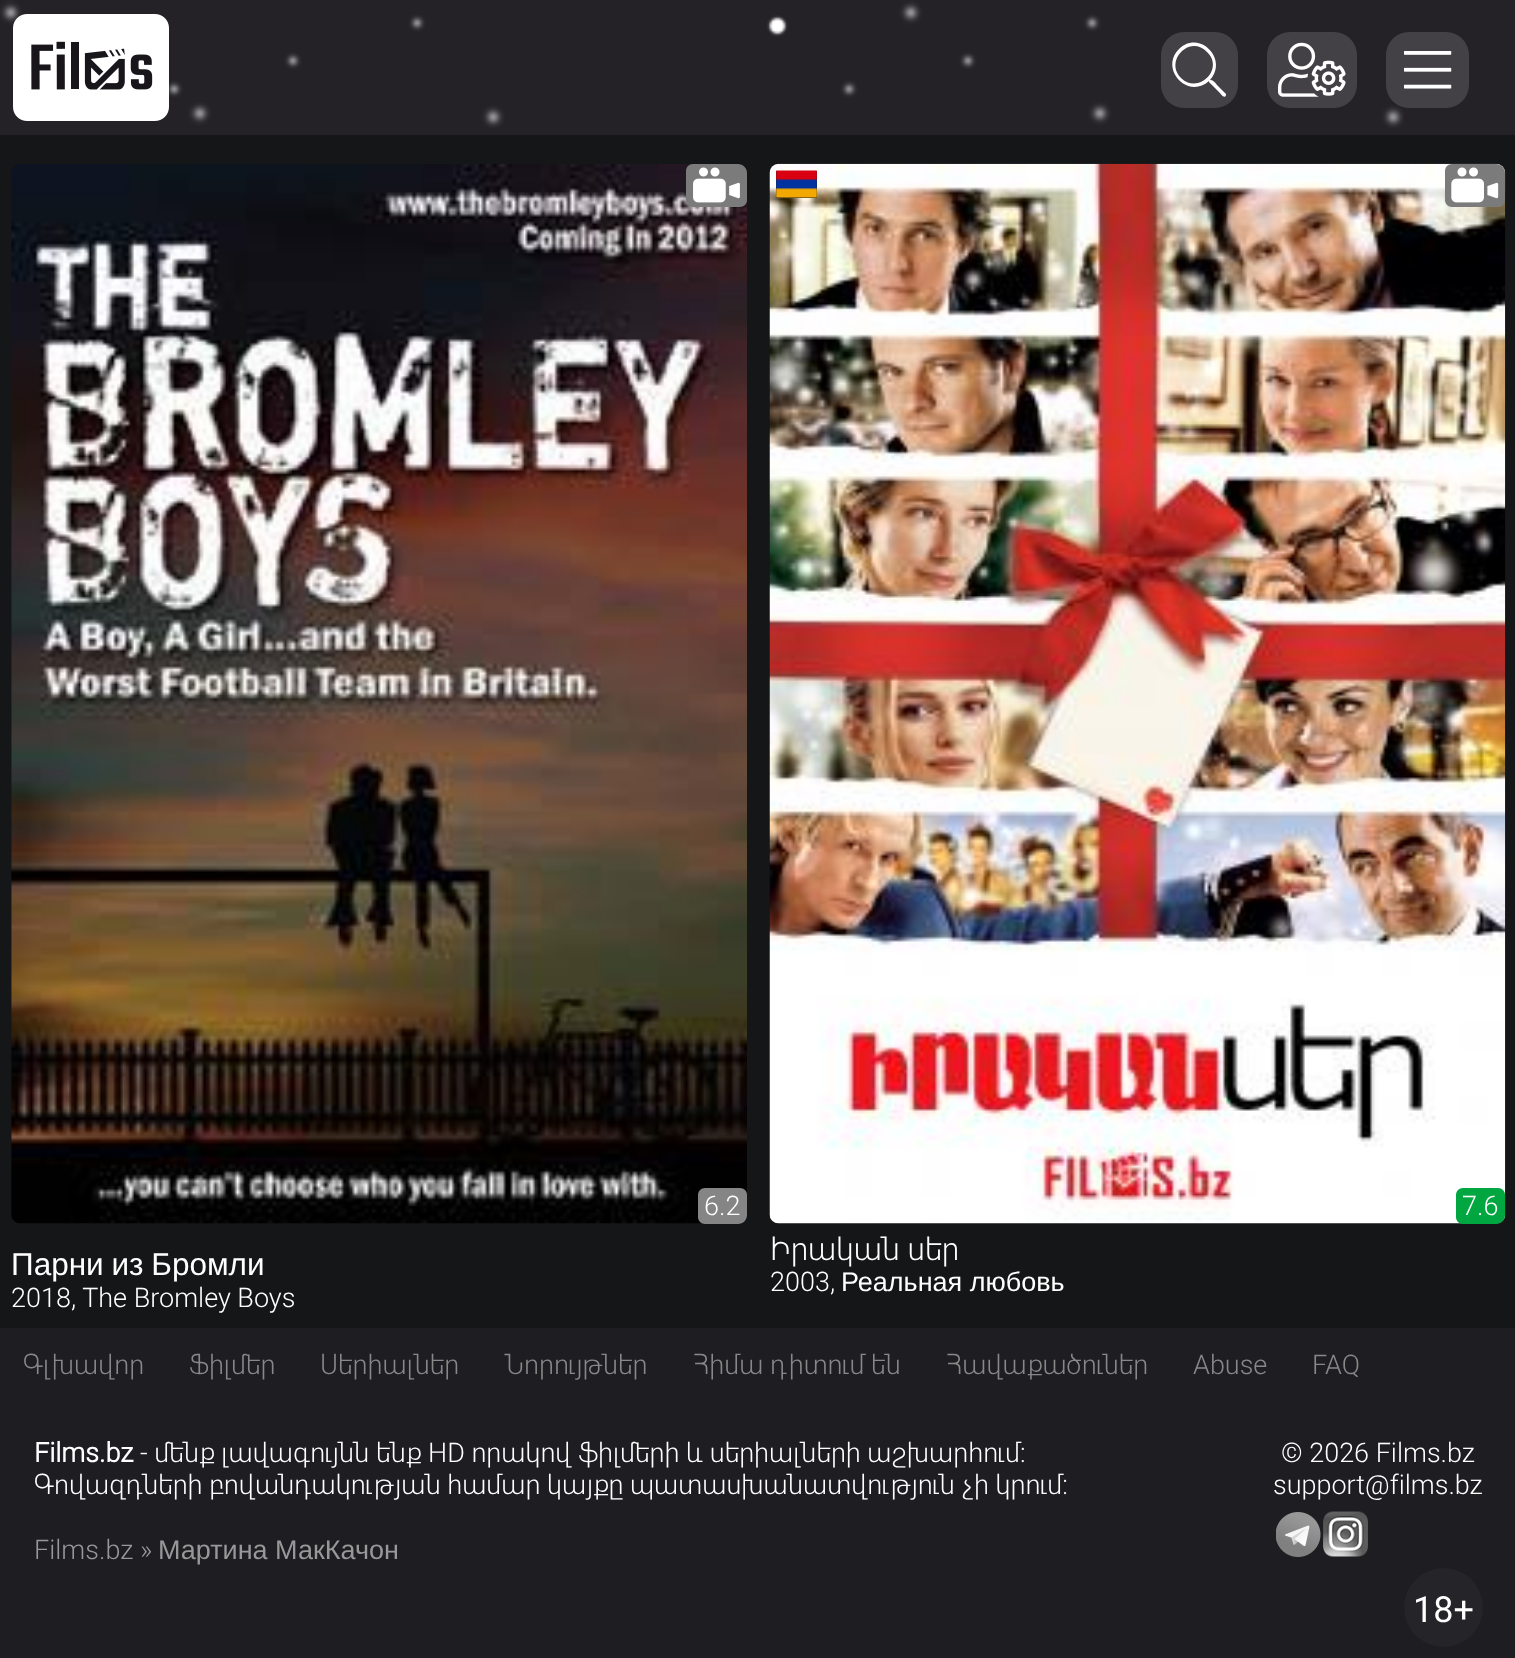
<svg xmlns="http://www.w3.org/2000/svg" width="1515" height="1658">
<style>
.a{font:300 27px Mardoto;fill:#fff}
.b{font:31.5px Liberation Sans;fill:#fff}
.c{font:300 31.5px Mardoto;fill:#fff}
.d{font:27px Liberation Sans;fill:#fff}
.e{font:300 27px Mardoto;fill:#888}
.f{font:bold 27px Mardoto;fill:#fff}
.g{font:36px Roboto;fill:#fff}
.h{font:300 27px Mardoto;fill:#989898}
.i{font:27px Liberation Sans;fill:#989898}
</style>
<rect width="100%" height="100%" fill="#151617"/>
<path fill="#242227" d="M0 0h1515v135H0z"/>
<image href="1.png" x="0" y="0" width="1404" height="128"/>
<image href="2.png" x="13" y="14" width="156" height="107"/>
<rect fill="#434146" x="1161" y="32" width="77" height="76" rx="23"/>
<path fill="#fff" d="M1226 94v1c-1 5-6-2-7-3l-7-7c-2-2-3-2-3-4c-21 19-50-12-30-32c20-20 50 10 31 31c3 0 5 2 7 5zm-45-16c17 17 44-9 26-26c-17-18-43 9-26 26z"/>
<rect fill="#434146" x="1267" y="32" width="90" height="76" rx="23"/>
<image href="3.png" x="1278" y="42" width="68" height="55"/>
<rect fill="#434146" x="1386" y="32" width="83" height="76" rx="23"/>
<image href="4.png" x="1404" y="51" width="48" height="38"/>
<image href="5.png" x="11" y="164" width="736" height="1060"/>
<path fill="#7b7b7b" d="M693 164h45c5 0 9 4 9 9v27c0 4-3 7-7 7h-47c-4 0-7-3-7-7v-29c0-4 3-7 7-7z"/>
<image href="6.png" x="693" y="167" width="47" height="36"/>
<path fill="#858585" d="M705 1188h35c4 0 7 3 7 7v20c0 5-4 9-9 9h-33c-4 0-7-3-7-7v-22c0-4 3-7 7-7z"/>
<image href="7.png" x="769" y="163" width="737" height="1061"/>
<path fill="#242227" d="M776 171h41v27H776z"/>
<image href="8.png" x="776" y="170" width="41" height="28"/>
<path fill="#7b7b7b" d="M1452 164h44c5 0 9 4 9 9v27c0 4-3 7-7 7h-46c-4 0-7-3-7-7v-29c0-4 3-7 7-7z"/>
<image href="9.png" x="1451" y="167" width="48" height="36"/>
<path fill="#00a740" d="M1463 1188h35c4 0 7 3 7 7v20c0 5-4 9-9 9h-33c-4 0-7-3-7-7v-22c0-4 3-7 7-7z"/>
<path fill="#1e1d21" d="M0 1328h1515v330H0z"/>
<image href="10.png" x="1276" y="1512" width="45" height="45"/>
<image href="11.png" x="1323" y="1511" width="45" height="46"/>
<circle fill="#252428" cx="1443.5" cy="1607.5" r="39.5"/>
<text class="a" x="704" y="1215">6.2</text>
<text class="b" x="11" y="1275" word-spacing="-1">Парни из Бромли</text>
<text class="a" x="11" y="1307">2018, The Bromley Boys</text>
<text class="a" x="1462" y="1215">7.6</text>
<text class="c" x="770" y="1260">Իրական սեր</text>
<text class="a" x="770" y="1291">2003,</text>
<text class="d" x="841" y="1291">Реальная любовь</text>
<text class="e" x="23" y="1374">Գլխավոր</text>
<text class="e" x="189" y="1374">Ֆիլմեր</text>
<text class="e" x="320" y="1374">Սերիալներ</text>
<text class="e" x="504" y="1374">Նորույթներ</text>
<text class="e" x="693" y="1374">Հիմա դիտում են</text>
<text class="e" x="946" y="1374">Հավաքածուներ</text>
<text class="e" x="1193" y="1374">Abuse</text>
<text class="e" x="1312" y="1374">FAQ</text>
<text class="f" x="34" y="1462">Films.bz</text>
<text class="a" x="140" y="1462">- մենք լավագույնն ենք HD որակով ֆիլմերի և սերիալների աշխարհում:</text>
<text class="a" x="34" y="1494">Գովազդների բովանդակության համար կայքը պատասխանատվություն չի կրում:</text>
<text class="a" x="1281" y="1462">© 2026 Films.bz</text>
<text class="a" x="1273" y="1494">support@films.bz</text>
<text class="g" x="1413" y="1622">18+</text>
<text class="h" x="34" y="1559">Films.bz »</text>
<text class="i" x="158" y="1559">Мартина МакКачон</text>
</svg>
